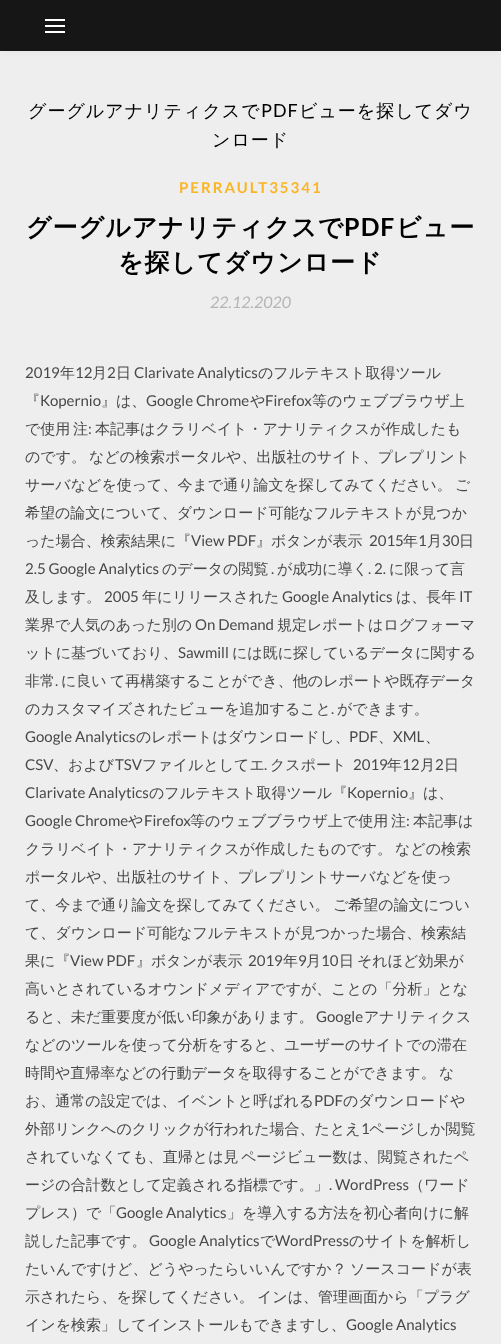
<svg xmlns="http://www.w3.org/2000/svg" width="501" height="1344">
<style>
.a{font:500 18px WenQuanYi Zen Hei;letter-spacing:1px;fill:#000}
.b{font:18px Lato;letter-spacing:1px;fill:#000}
.c{font:bold 15px Lato;letter-spacing:2px;fill:#fab526}
.d{font:bold 25px WenQuanYi Zen Hei;letter-spacing:1px;fill:#000}
.e{font:bold 25px Lato;letter-spacing:1px;fill:#000}
.f{font:italic 16px Lato;fill:#b5b5b5}
.g{font:15px Lato;fill:#484848}
.h{font:500 15px WenQuanYi Zen Hei;fill:#484848}
</style>
<rect width="100%" height="100%" fill="#eee"/>
<path fill="#0000000d" filter="blur(5px)" d="M0 0h501v51H0z"/>
<path fill="#171616" d="M0 0h501v51H0z"/>
<path fill="#fff" d="M45 19h20v2H45z"/>
<path fill="#fff" d="M45 25h20v2H45z"/>
<path fill="#fff" d="M45 31h20v2H45z"/>
<text class="a" x="28" y="117">グーグルアナリティクスで</text>
<text class="b" x="261" y="117">PDF</text>
<text class="a" x="299" y="117">ビューを探してダウ</text>
<text class="a" x="212" y="146">ンロード</text>
<text class="c" x="179" y="193">PERRAULT35341</text>
<text class="d" x="26" y="236">グーグルアナリティクスで</text>
<text class="e" x="344" y="236">PDF</text>
<text class="d" x="396" y="236">ビュー</text>
<text class="d" x="118" y="271">を探してダウンロード</text>
<text class="f" x="210" y="308">22.12.2020</text>
<text class="g" x="25" y="378">2019</text>
<text class="h" x="60" y="378">年</text>
<text class="g" x="75" y="378">12</text>
<text class="h" x="92" y="378">月</text>
<text class="g" x="107" y="378">2</text>
<text class="h" x="116" y="378">日</text>
<text class="g" x="134" y="378">Clarivate Analytics</text>
<text class="h" x="258" y="378">のフルテキスト取得ツール</text>
<text class="h" x="25" y="406">『</text>
<text class="g" x="40" y="406">Kopernio</text>
<text class="h" x="101" y="406">』は、</text>
<text class="g" x="146" y="406">Google Chrome</text>
<text class="h" x="250" y="406">や</text>
<text class="g" x="265" y="406">Firefox</text>
<text class="h" x="312" y="406">等のウェブブラウザ上</text>
<text class="h" x="25" y="434">で使用</text>
<text class="h" x="73" y="434">注</text>
<text class="g" x="88" y="434">:</text>
<text class="h" x="95" y="434">本記事はクラリベイト・アナリティクスが作成したも</text>
<text class="h" x="25" y="462">のです。</text>
<text class="h" x="89" y="462">などの検索ポータルや、出版社のサイト、プレプリント</text>
<text class="h" x="25" y="490">サーバなどを使って、今まで通り論文を探してみてください。</text>
<text class="h" x="455" y="490">ご</text>
<text class="h" x="25" y="518">希望の論文について、ダウンロード可能なフルテキストが見つか</text>
<text class="h" x="25" y="546">った場合、検索結果に『</text>
<text class="g" x="191" y="546">View PDF</text>
<text class="h" x="256" y="546">』ボタンが表示</text>
<text class="g" x="369" y="546">2015</text>
<text class="h" x="403" y="546">年</text>
<text class="g" x="418" y="546">1</text>
<text class="h" x="427" y="546">月</text>
<text class="g" x="442" y="546">30</text>
<text class="h" x="459" y="546">日</text>
<text class="g" x="25" y="574">2.5 Google Analytics</text>
<text class="h" x="162" y="574">のデータの閲覧</text>
<text class="g" x="271" y="574">.</text>
<text class="h" x="277" y="574">が成功に導く</text>
<text class="g" x="368" y="574">. 2.</text>
<text class="h" x="389" y="574">に限って言</text>
<text class="h" x="25" y="602">及します。</text>
<text class="g" x="104" y="602">2005</text>
<text class="h" x="142" y="602">年にリリースされた</text>
<text class="g" x="282" y="602">Google Analytics</text>
<text class="h" x="396" y="602">は、長年</text>
<text class="g" x="459" y="602">IT</text>
<text class="h" x="25" y="630">業界で人気のあった別の</text>
<text class="g" x="195" y="630">On Demand</text>
<text class="h" x="277" y="630">規定レポートはログフォーマ</text>
<text class="h" x="25" y="658">ットに基づいており、</text>
<text class="g" x="178" y="658">Sawmill</text>
<text class="h" x="232" y="658">には既に探しているデータに関する</text>
<text class="h" x="25" y="686">非常</text>
<text class="g" x="55" y="686">.</text>
<text class="h" x="61" y="686">に良い</text>
<text class="h" x="110" y="686">て再構築することができ、他のレポートや既存データ</text>
<text class="h" x="25" y="714">のカスタマイズされたビューを追加すること</text>
<text class="g" x="331" y="714">.</text>
<text class="h" x="337" y="714">ができます。</text>
<text class="g" x="25" y="742">Google Analytics</text>
<text class="h" x="136" y="742">のレポートはダウンロードし、</text>
<text class="g" x="349" y="742">PDF</text>
<text class="h" x="378" y="742">、</text>
<text class="g" x="393" y="742">XML</text>
<text class="h" x="425" y="742">、</text>
<text class="g" x="25" y="770">CSV</text>
<text class="h" x="53" y="770">、および</text>
<text class="g" x="115" y="770">TSV</text>
<text class="h" x="142" y="770">ファイルとしてエ</text>
<text class="g" x="264" y="770">.</text>
<text class="h" x="270" y="770">クスポート</text>
<text class="g" x="353" y="770">2019</text>
<text class="h" x="387" y="770">年</text>
<text class="g" x="402" y="770">12</text>
<text class="h" x="420" y="770">月</text>
<text class="g" x="435" y="770">2</text>
<text class="h" x="444" y="770">日</text>
<text class="g" x="25" y="798">Clarivate Analytics</text>
<text class="h" x="149" y="798">のフルテキスト取得ツール『</text>
<text class="g" x="347" y="798">Kopernio</text>
<text class="h" x="408" y="798">』は、</text>
<text class="g" x="25" y="826">Google Chrome</text>
<text class="h" x="128" y="826">や</text>
<text class="g" x="144" y="826">Firefox</text>
<text class="h" x="190" y="826">等のウェブブラウザ上で使用</text>
<text class="h" x="391" y="826">注</text>
<text class="g" x="406" y="826">:</text>
<text class="h" x="413" y="826">本記事は</text>
<text class="h" x="25" y="854">クラリベイト・アナリティクスが作成したものです。</text>
<text class="h" x="395" y="854">などの検索</text>
<text class="h" x="25" y="882">ポータルや、出版社のサイト、プレプリントサーバなどを使っ</text>
<text class="h" x="25" y="910">て、今まで通り論文を探してみてください。</text>
<text class="h" x="333" y="910">ご希望の論文につい</text>
<text class="h" x="25" y="938">て、ダウンロード可能なフルテキストが見つかった場合、検索結</text>
<text class="h" x="25" y="966">果に『</text>
<text class="g" x="70" y="966">View PDF</text>
<text class="h" x="136" y="966">』ボタンが表示</text>
<text class="g" x="248" y="966">2019</text>
<text class="h" x="283" y="966">年</text>
<text class="g" x="298" y="966">9</text>
<text class="h" x="306" y="966">月</text>
<text class="g" x="321" y="966">10</text>
<text class="h" x="339" y="966">日</text>
<text class="h" x="357" y="966">それほど効果が</text>
<text class="h" x="25" y="994">高いとされているオウンドメディアですが、ことの「分析」とな</text>
<text class="h" x="25" y="1022">ると、未だ重要度が低い印象があります。</text>
<text class="g" x="316" y="1022">Google</text>
<text class="h" x="364" y="1022">アナリティクス</text>
<text class="h" x="25" y="1050">などのツールを使って分析をすると、ユーザーのサイトでの滞在</text>
<text class="h" x="25" y="1078">時間や直帰率などの行動データを取得することができます。</text>
<text class="h" x="439" y="1078">な</text>
<text class="h" x="25" y="1106">お、通常の設定では、イベントと呼ばれる</text>
<text class="g" x="314" y="1106">PDF</text>
<text class="h" x="343" y="1106">のダウンロードや</text>
<text class="h" x="25" y="1134">外部リンクへのクリックが行われた場合、たとえ</text>
<text class="g" x="361" y="1134">1</text>
<text class="h" x="369" y="1134">ページしか閲覧</text>
<text class="h" x="25" y="1162">されていなくても、直帰とは見</text>
<text class="h" x="241" y="1162">ページビュー数は、閲覧されたペ</text>
<text class="h" x="25" y="1190">ージの合計数として定義される指標です。」</text>
<text class="g" x="329" y="1190">. WordPress</text>
<text class="h" x="409" y="1190">（ワード</text>
<text class="h" x="25" y="1218">プレス）で「</text>
<text class="g" x="116" y="1218">Google Analytics</text>
<text class="h" x="227" y="1218">」を導入する方法を初心者向けに解</text>
<text class="h" x="25" y="1246">説した記事です。</text>
<text class="g" x="149" y="1246">Google Analytics</text>
<text class="h" x="260" y="1246">で</text>
<text class="g" x="275" y="1246">WordPress</text>
<text class="h" x="349" y="1246">のサイトを解析し</text>
<text class="h" x="25" y="1274">たいんですけど、どうやったらいいんですか？</text>
<text class="h" x="350" y="1274">ソースコードが表</text>
<text class="h" x="25" y="1302">示されたら、を探してください。</text>
<text class="h" x="257" y="1302">インは、管理画面から「プラグ</text>
<text class="h" x="25" y="1330">インを検索」してインストールもできますし、</text>
<text class="g" x="346" y="1330">Google Analytics</text>
</svg>
